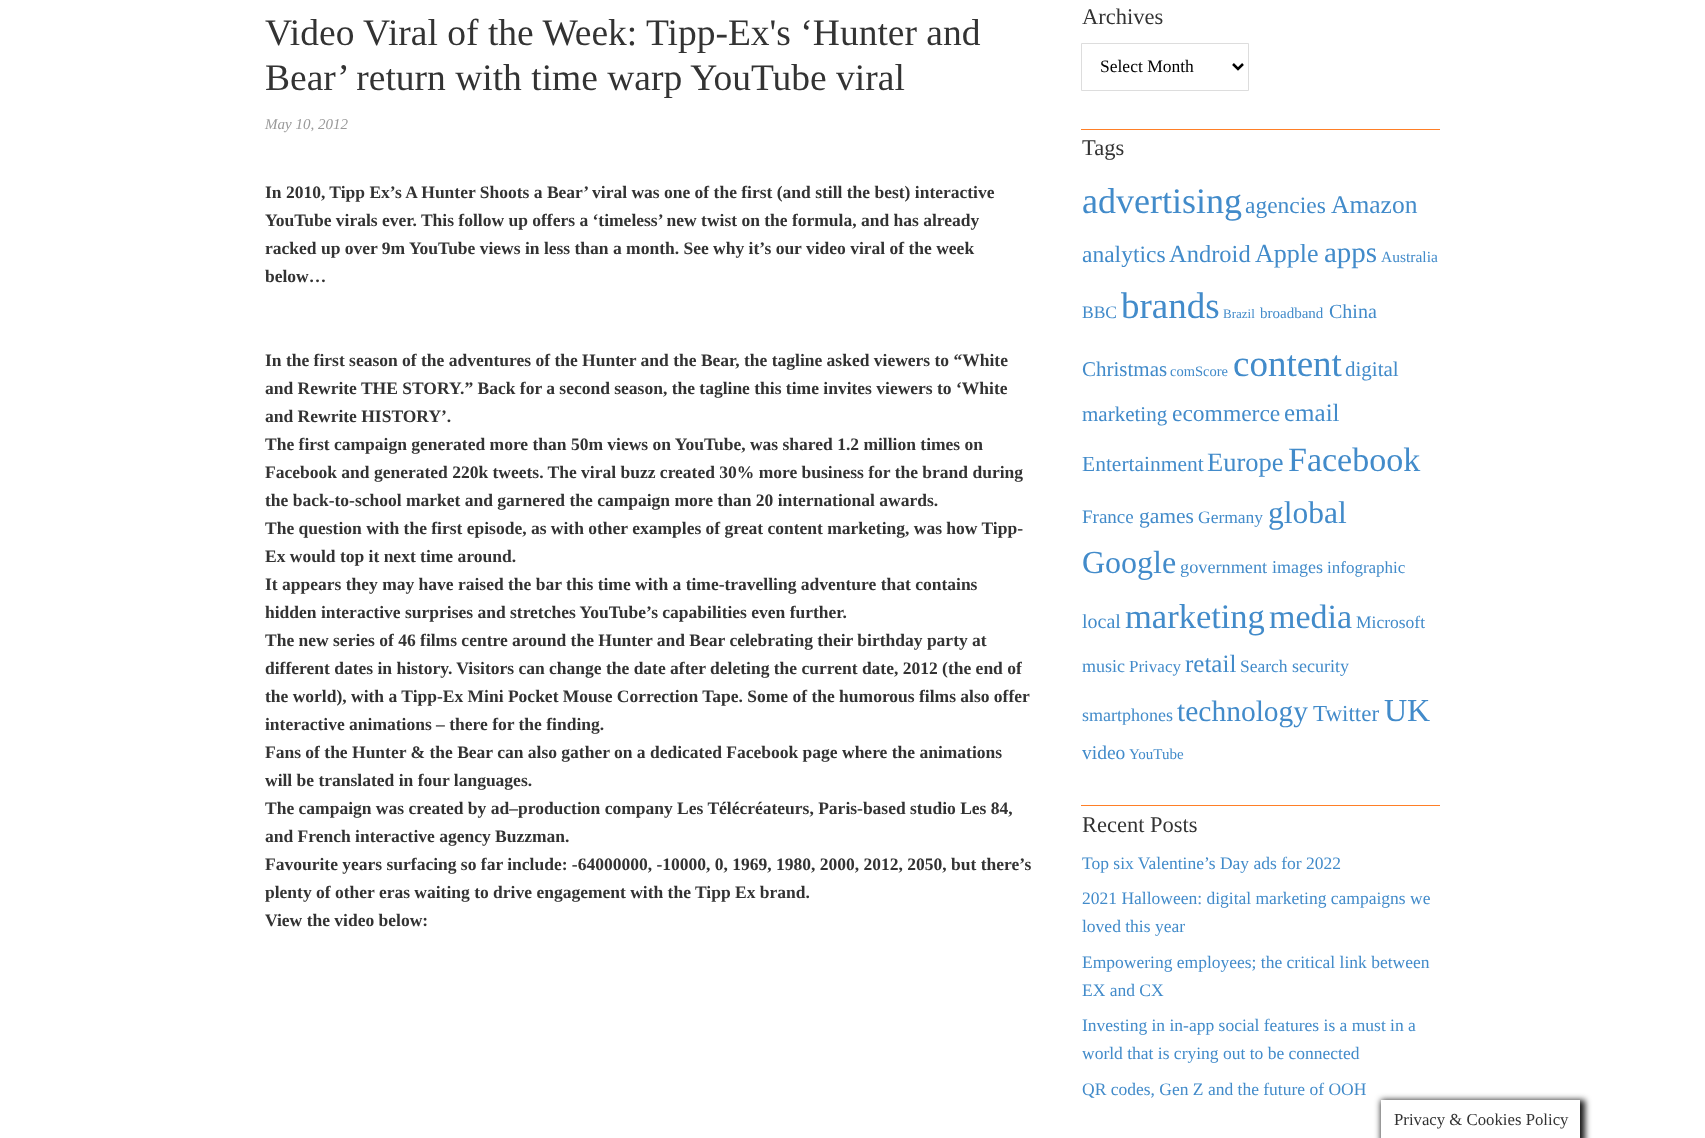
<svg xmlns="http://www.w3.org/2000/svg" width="1705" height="1138">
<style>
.a{font:37.5px Liberation Serif;fill:#333}
.b{font:italic 15px Liberation Serif;fill:#999}
.c{font:bold 17.5px Liberation Serif;fill:#333}
.d{font:22.5px Liberation Serif;fill:#333}
.e{font:17.5px Liberation Serif;fill:#000}
.f{font:36px Liberation Serif;fill:#428bca}
.g{font:23.5px Liberation Serif;fill:#428bca}
.h{font:25.5px Liberation Serif;fill:#428bca}
.i{font:24.5px Liberation Serif;fill:#428bca}
.j{font:26px Liberation Serif;fill:#428bca}
.k{font:29px Liberation Serif;fill:#428bca}
.l{font:15.5px Liberation Serif;fill:#428bca}
.m{font:17.5px Liberation Serif;fill:#428bca}
.n{font:37px Liberation Serif;fill:#428bca}
.o{font:13px Liberation Serif;fill:#428bca}
.p{font:15px Liberation Serif;fill:#428bca}
.q{font:20px Liberation Serif;fill:#428bca}
.r{font:21px Liberation Serif;fill:#428bca}
.s{font:14.5px Liberation Serif;fill:#428bca}
.t{font:25px Liberation Serif;fill:#428bca}
.u{font:21.5px Liberation Serif;fill:#428bca}
.v{font:26.5px Liberation Serif;fill:#428bca}
.w{font:34px Liberation Serif;fill:#428bca}
.x{font:19px Liberation Serif;fill:#428bca}
.y{font:31.5px Liberation Serif;fill:#428bca}
.z{font:32px Liberation Serif;fill:#428bca}
.a1{font:18.25px Liberation Serif;fill:#428bca}
.b1{font:18px Liberation Serif;fill:#428bca}
.c1{font:17px Liberation Serif;fill:#428bca}
.d1{font:34.5px Liberation Serif;fill:#428bca}
.e1{font:29.5px Liberation Serif;fill:#428bca}
.f1{font:23px Liberation Serif;fill:#428bca}
.g1{font:19.5px Liberation Serif;fill:#428bca}
.h1{font:16.75px Liberation Serif;fill:#333}
</style>
<rect width="100%" height="100%" fill="#fff"/>
<path fill="none" stroke="#ddd" d="M1081.5 43.5h167v47H1081.5z"/>
<path fill="none" stroke="#000" stroke-width="2.5" d="M1233 64l5 5l5-5"/>
<path fill="#ff7f27" d="M1081 129h359v1H1081z"/>
<path fill="#ff7f27" d="M1081 805h359v1H1081z"/>
<path fill="#161616" filter="blur(3px)" d="M1381 1100h204v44H1381z"/>
<path fill="#fff" d="M1381 1100h199v38H1381z"/>
<text class="a" x="265" y="45">Video Viral of the Week: Tipp-Ex's ‘Hunter and</text>
<text class="a" x="265" y="90">Bear’ return with time warp YouTube viral</text>
<text class="b" x="265" y="129">May 10, 2012</text>
<text class="c" x="265" y="198">In 2010, Tipp Ex’s A Hunter Shoots a Bear’ viral was one of the first (and still the best) interactive</text>
<text class="c" x="265" y="226">YouTube virals ever. This follow up offers a ‘timeless’ new twist on the formula, and has already</text>
<text class="c" x="265" y="254">racked up over 9m YouTube views in less than a month. See why it’s our video viral of the week</text>
<text class="c" x="265" y="282">below…</text>
<text class="c" x="265" y="366">In the first season of the adventures of the Hunter and the Bear, the tagline asked viewers to “White</text>
<text class="c" x="265" y="394">and Rewrite THE STORY.” Back for a second season, the tagline this time invites viewers to ‘White</text>
<text class="c" x="265" y="422">and Rewrite HISTORY’.</text>
<text class="c" x="265" y="450">The first campaign generated more than 50m views on YouTube, was shared 1.2 million times on</text>
<text class="c" x="265" y="478">Facebook and generated 220k tweets. The viral buzz created 30% more business for the brand during</text>
<text class="c" x="265" y="506">the back-to-school market and garnered the campaign more than 20 international awards.</text>
<text class="c" x="265" y="534">The question with the first episode, as with other examples of great content marketing, was how Tipp-</text>
<text class="c" x="265" y="562">Ex would top it next time around.</text>
<text class="c" x="265" y="590">It appears they may have raised the bar this time with a time-travelling adventure that contains</text>
<text class="c" x="265" y="618">hidden interactive surprises and stretches YouTube’s capabilities even further.</text>
<text class="c" x="265" y="646">The new series of 46 films centre around the Hunter and Bear celebrating their birthday party at</text>
<text class="c" x="265" y="674">different dates in history. Visitors can change the date after deleting the current date, 2012 (the end of</text>
<text class="c" x="265" y="702">the world), with a Tipp-Ex Mini Pocket Mouse Correction Tape. Some of the humorous films also offer</text>
<text class="c" x="265" y="730">interactive animations – there for the finding.</text>
<text class="c" x="265" y="758">Fans of the Hunter &amp; the Bear can also gather on a dedicated Facebook page where the animations</text>
<text class="c" x="265" y="786">will be translated in four languages.</text>
<text class="c" x="265" y="814">The campaign was created by ad–production company Les Télécréateurs, Paris-based studio Les 84,</text>
<text class="c" x="265" y="842">and French interactive agency Buzzman.</text>
<text class="c" x="265" y="870">Favourite years surfacing so far include: -64000000, -10000, 0, 1969, 1980, 2000, 2012, 2050, but there’s</text>
<text class="c" x="265" y="898">plenty of other eras waiting to drive engagement with the Tipp Ex brand.</text>
<text class="c" x="265" y="926">View the video below:</text>
<text class="d" x="1082" y="24">Archives</text>
<text class="e" x="1100" y="72">Select Month</text>
<text class="d" x="1082" y="155">Tags</text>
<text class="f" x="1082" y="213">advertising</text>
<text class="g" x="1245" y="213">agencies</text>
<text class="h" x="1331" y="213">Amazon</text>
<text class="g" x="1082" y="262">analytics</text>
<text class="i" x="1169" y="262">Android</text>
<text class="j" x="1255" y="262">Apple</text>
<text class="k" x="1324" y="262">apps</text>
<text class="l" x="1381" y="262">Australia</text>
<text class="m" x="1082" y="318">BBC</text>
<text class="n" x="1121" y="318">brands</text>
<text class="o" x="1223" y="318">Brazil</text>
<text class="p" x="1260" y="318">broadband</text>
<text class="q" x="1329" y="318">China</text>
<text class="r" x="1082" y="376">Christmas</text>
<text class="s" x="1170" y="376">comScore</text>
<text class="n" x="1233" y="376">content</text>
<text class="r" x="1345" y="376">digital</text>
<text class="r" x="1082" y="421">marketing</text>
<text class="g" x="1172" y="421">ecommerce</text>
<text class="t" x="1284" y="421">email</text>
<text class="u" x="1082" y="471">Entertainment</text>
<text class="v" x="1207" y="471">Europe</text>
<text class="w" x="1288" y="471">Facebook</text>
<text class="x" x="1082" y="523">France</text>
<text class="u" x="1139" y="523">games</text>
<text class="m" x="1198" y="523">Germany</text>
<text class="y" x="1268" y="523">global</text>
<text class="z" x="1082" y="573">Google</text>
<text class="a1" x="1180" y="573">government</text>
<text class="b1" x="1272" y="573">images</text>
<text class="c1" x="1327" y="573">infographic</text>
<text class="q" x="1082" y="628">local</text>
<text class="d1" x="1125" y="628">marketing</text>
<text class="w" x="1269" y="628">media</text>
<text class="m" x="1356" y="628">Microsoft</text>
<text class="b1" x="1082" y="672">music</text>
<text class="c1" x="1129" y="672">Privacy</text>
<text class="t" x="1185" y="672">retail</text>
<text class="m" x="1240" y="672">Search</text>
<text class="b1" x="1292" y="672">security</text>
<text class="b1" x="1082" y="721">smartphones</text>
<text class="e1" x="1177" y="721">technology</text>
<text class="f1" x="1313" y="721">Twitter</text>
<text class="z" x="1384" y="721">UK</text>
<text class="g1" x="1082" y="759">video</text>
<text class="p" x="1129" y="759">YouTube</text>
<text class="d" x="1082" y="832">Recent Posts</text>
<text class="m" x="1082" y="869">Top six Valentine’s Day ads for 2022</text>
<text class="m" x="1082" y="904">2021 Halloween: digital marketing campaigns we</text>
<text class="m" x="1082" y="932">loved this year</text>
<text class="m" x="1082" y="968">Empowering employees; the critical link between</text>
<text class="m" x="1082" y="996">EX and CX</text>
<text class="m" x="1082" y="1031">Investing in in-app social features is a must in a</text>
<text class="m" x="1082" y="1059">world that is crying out to be connected</text>
<text class="m" x="1082" y="1095">QR codes, Gen Z and the future of OOH</text>
<text class="h1" x="1394" y="1125">Privacy &amp; Cookies Policy</text>
</svg>
